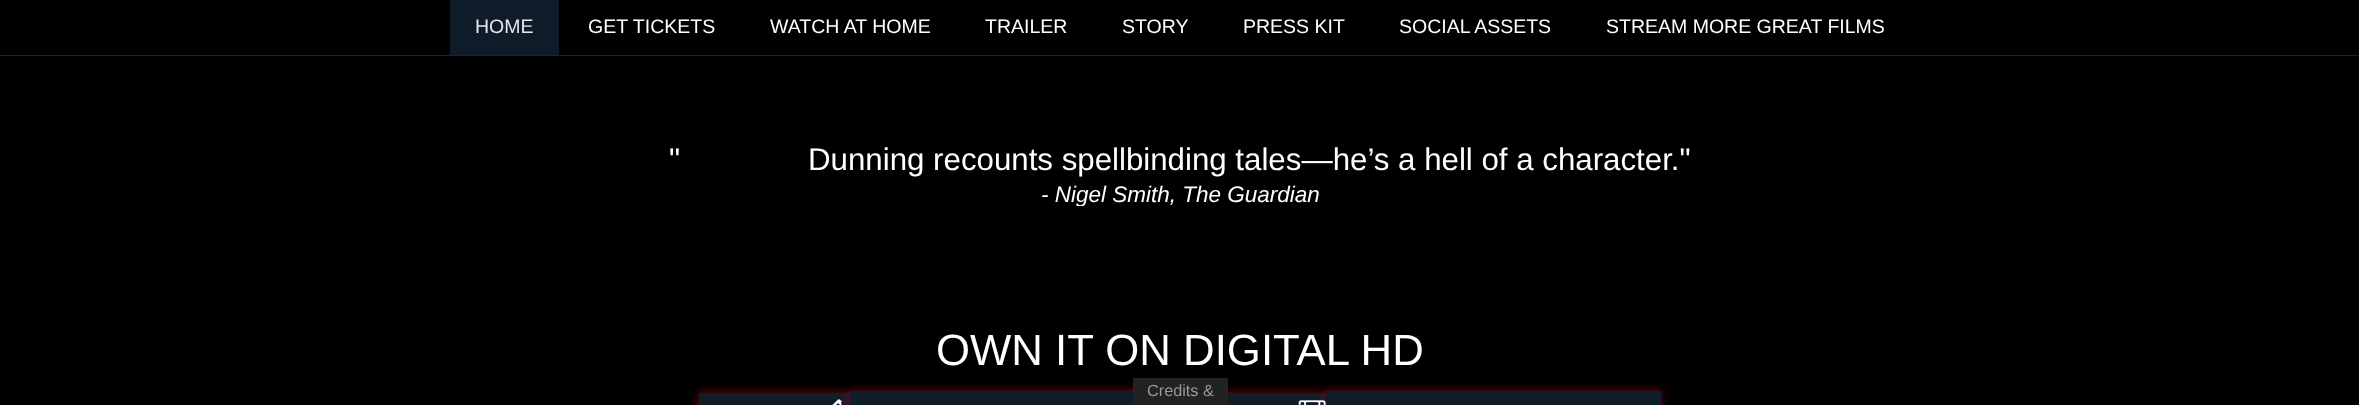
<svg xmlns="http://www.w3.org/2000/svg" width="2359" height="405">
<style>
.a{font:19.5px Liberation Sans;fill:#e6e6e6}
.b{font:19.5px Liberation Sans;fill:#fff}
.c{font:31.25px Liberation Sans;fill:#fff}
.d{font:italic 22.5px Liberation Sans;fill:#fff}
.e{font:43.75px Liberation Sans;fill:#fff}
.f{font:16.25px Liberation Sans;fill:#999}
</style>
<defs>
<clipPath id="clip1"><path d="M0 144h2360v62H0z"/></clipPath>
</defs>
<rect width="100%" height="100%" fill="#000"/>
<path fill="#650508" d="M0 55h2359v1H0z"/>
<path fill="#0e1b28" d="M450 0h109v55H450z"/>
<path fill="#c90a1099" filter="blur(5px)" d="M699 393h150v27H699z"/>
<path fill="#101d2b" d="M699 393h150v12H699z"/>
<path fill="#c90a1099" filter="blur(5px)" d="M849 391h309v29H849z"/>
<path fill="#101d2b" d="M849 391h284v14H849z"/>
<image href="1.png" x="832" y="399" width="10" height="6"/>
<path fill="#c90a1099" filter="blur(5px)" d="M1190 393h135v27H1190z"/>
<path fill="#101d2b" d="M1228 393h97v12H1228z"/>
<path fill="#c90a1099" filter="blur(5px)" d="M1325 391h336v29H1325z"/>
<path fill="#101d2b" d="M1325 391h336v14H1325z"/>
<image href="2.png" x="1298" y="400" width="28" height="5"/>
<path fill="#222" d="M1133 378h95v27H1133z"/>
<text class="a" x="475" y="33">HOME</text>
<text class="b" x="588" y="33">GET TICKETS</text>
<text class="b" x="770" y="33">WATCH AT HOME</text>
<text class="b" x="985" y="33">TRAILER</text>
<text class="b" x="1122" y="33">STORY</text>
<text class="b" x="1243" y="33">PRESS KIT</text>
<text class="b" x="1399" y="33">SOCIAL ASSETS</text>
<text class="b" x="1606" y="33">STREAM MORE GREAT FILMS</text>
<text class="c" x="669" y="170">"</text>
<text class="c" x="808" y="170">Dunning recounts spellbinding tales—he’s a hell of a character."</text>
<g clip-path="url(#clip1)">
<text class="d" x="1041" y="202">- Nigel Smith, The Guardian</text>
</g>
<text class="e" x="936" y="365">OWN IT ON DIGITAL HD</text>
<text class="f" x="1147" y="396">Credits &amp;</text>
</svg>
